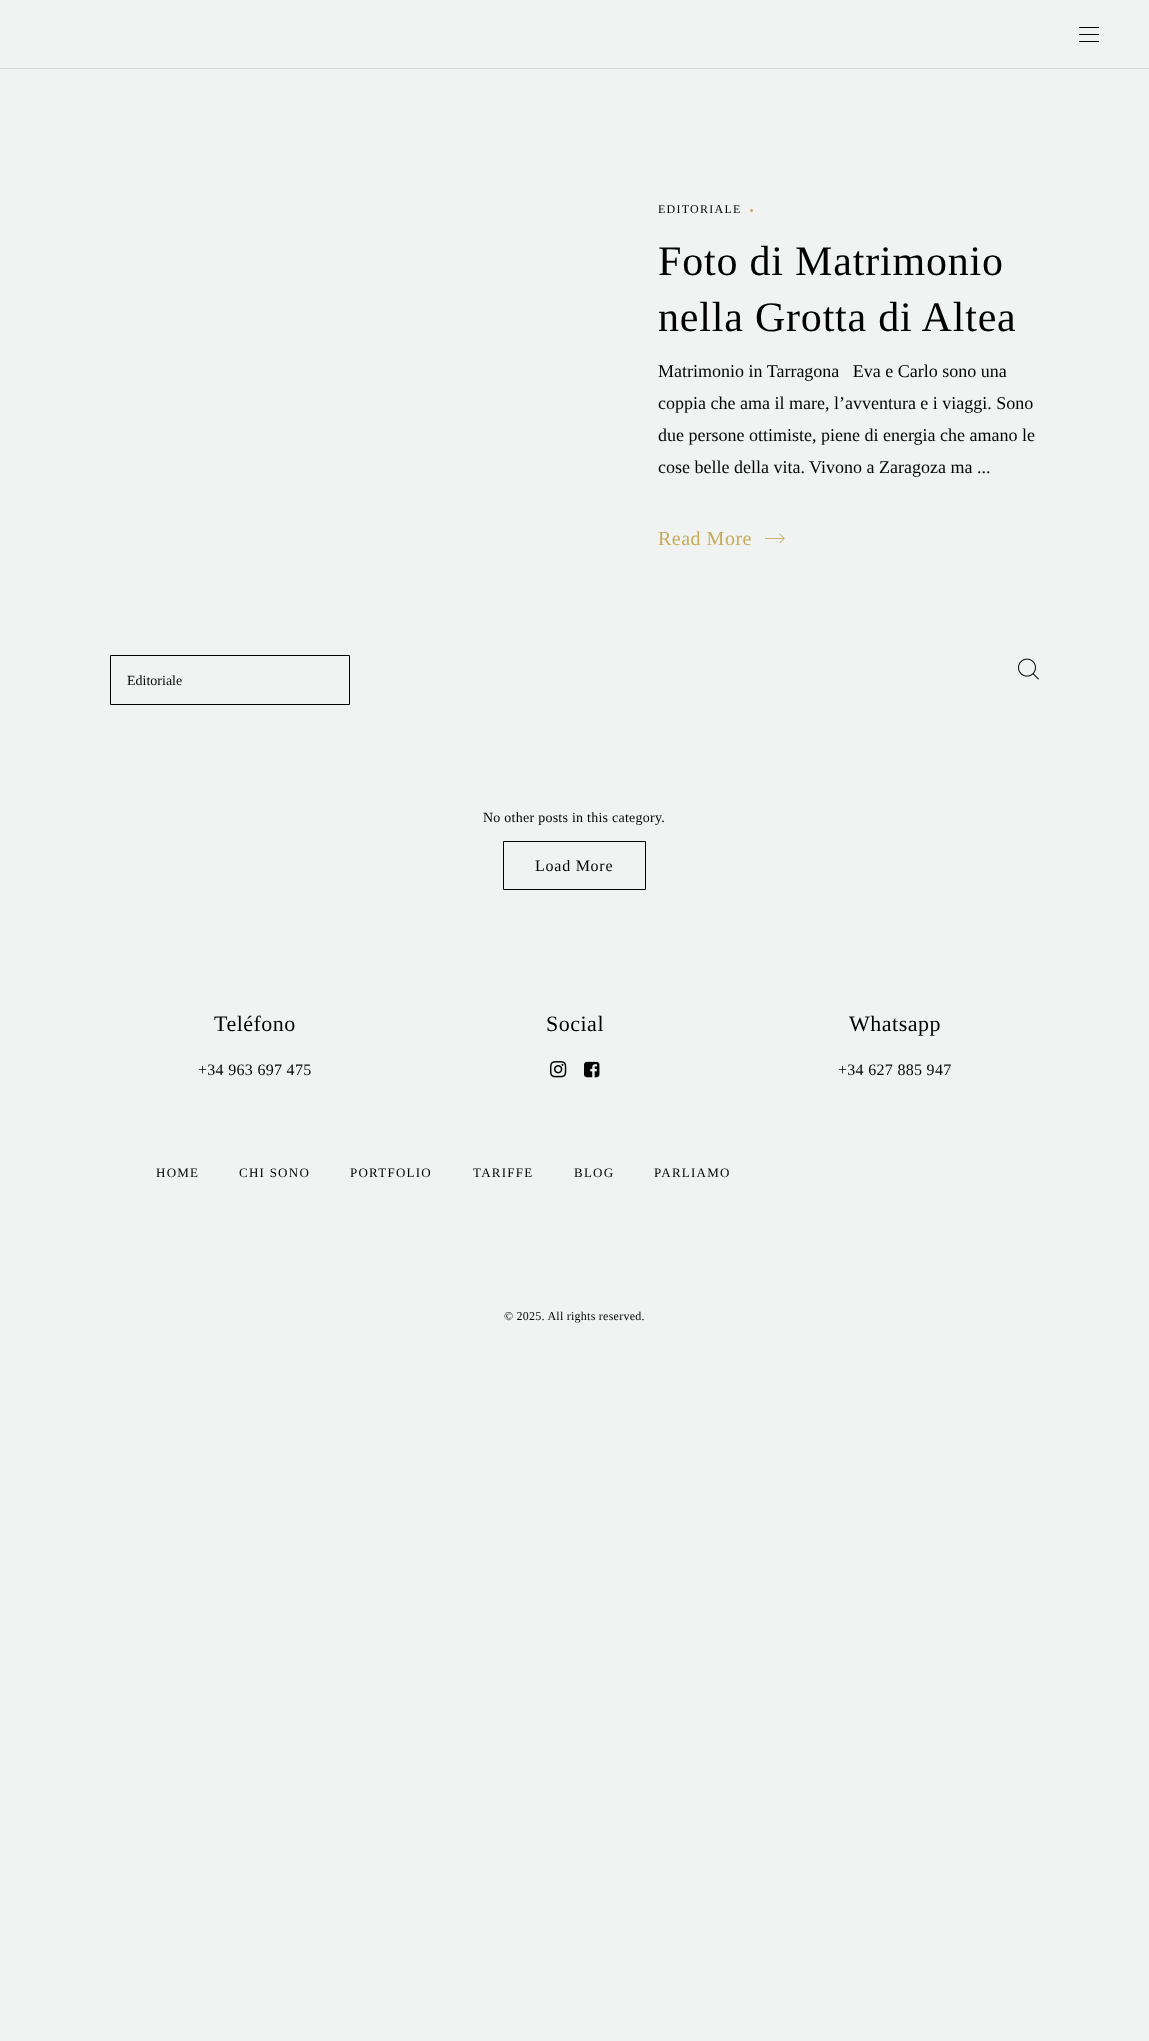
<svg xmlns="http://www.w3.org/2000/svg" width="1149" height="2041">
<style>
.a{font:12px Liberation Serif;letter-spacing:1.25px;fill:#000}
.b{font:42px Liberation Serif;letter-spacing:0.8px;fill:#000}
.c{font:18px Liberation Serif;fill:#000}
.d{font:20px Liberation Serif;letter-spacing:0.5px;fill:#c6ac5a}
.e{font:14px Liberation Serif;fill:#000}
.f{font:14px Liberation Serif;letter-spacing:0.25px;fill:#000}
.g{font:16px Liberation Serif;letter-spacing:0.75px;fill:#000}
.h{font:22px Liberation Serif;letter-spacing:0.5px;fill:#000}
.i{font:16px Liberation Serif;letter-spacing:0.3px;fill:#000}
.j{font:13px Liberation Serif;letter-spacing:1.25px;fill:#000}
.k{font:12px Liberation Serif;letter-spacing:0.25px;fill:#000}
</style>
<rect width="100%" height="100%" fill="#f1f3f3"/>
<path fill="#d9dbdb" d="M0 68h1149v1H0z"/>
<path fill="#000" d="M1079 41h20v1H1079z"/>
<path fill="#000" d="M1079 27h20v1H1079z"/>
<path fill="#000" d="M1079 34h20v1H1079z"/>
<circle fill="#c6ac5a" cx="751.5" cy="210.5" r="1.5"/>
<image href="1.png" x="765" y="533" width="20" height="11"/>
<path fill="none" stroke="#000" d="M110.5 655.5h239v49H110.5z"/>
<image href="2.png" x="1018" y="658" width="21" height="22"/>
<path fill="none" stroke="#000" d="M503.5 841.5h142v48H503.5z"/>
<image href="3.png" x="550" y="1061" width="17" height="17"/>
<image href="4.png" x="584" y="1061" width="16" height="17"/>
<text class="a" x="658" y="213">EDITORIALE</text>
<text class="b" x="658" y="275">Foto di Matrimonio</text>
<text class="b" x="658" y="331">nella Grotta di Altea</text>
<text class="c" xml:space="preserve" x="658" y="377">Matrimonio in Tarragona   Eva e Carlo sono una</text>
<text class="c" x="658" y="409">coppia che ama il mare, l’avventura e i viaggi. Sono</text>
<text class="c" x="658" y="441">due persone ottimiste, piene di energia che amano le</text>
<text class="c" x="658" y="473">cose belle della vita. Vivono a Zaragoza ma ...</text>
<text class="d" x="658" y="545">Read More</text>
<text class="e" x="127" y="685">Editoriale</text>
<text class="f" x="483" y="822">No other posts in this category.</text>
<text class="g" x="535" y="871">Load More</text>
<text class="h" x="214" y="1031">Teléfono</text>
<text class="i" x="198" y="1075">+34 963 697 475</text>
<text class="h" x="546" y="1031">Social</text>
<text class="h" x="849" y="1031">Whatsapp</text>
<text class="i" x="838" y="1075">+34 627 885 947</text>
<text class="j" x="156" y="1177">HOME</text>
<text class="j" x="239" y="1177">CHI SONO</text>
<text class="j" x="350" y="1177">PORTFOLIO</text>
<text class="j" x="473" y="1177">TARIFFE</text>
<text class="j" x="574" y="1177">BLOG</text>
<text class="j" x="654" y="1177">PARLIAMO</text>
<text class="k" x="504" y="1320">© 2025. All rights reserved.</text>
</svg>
